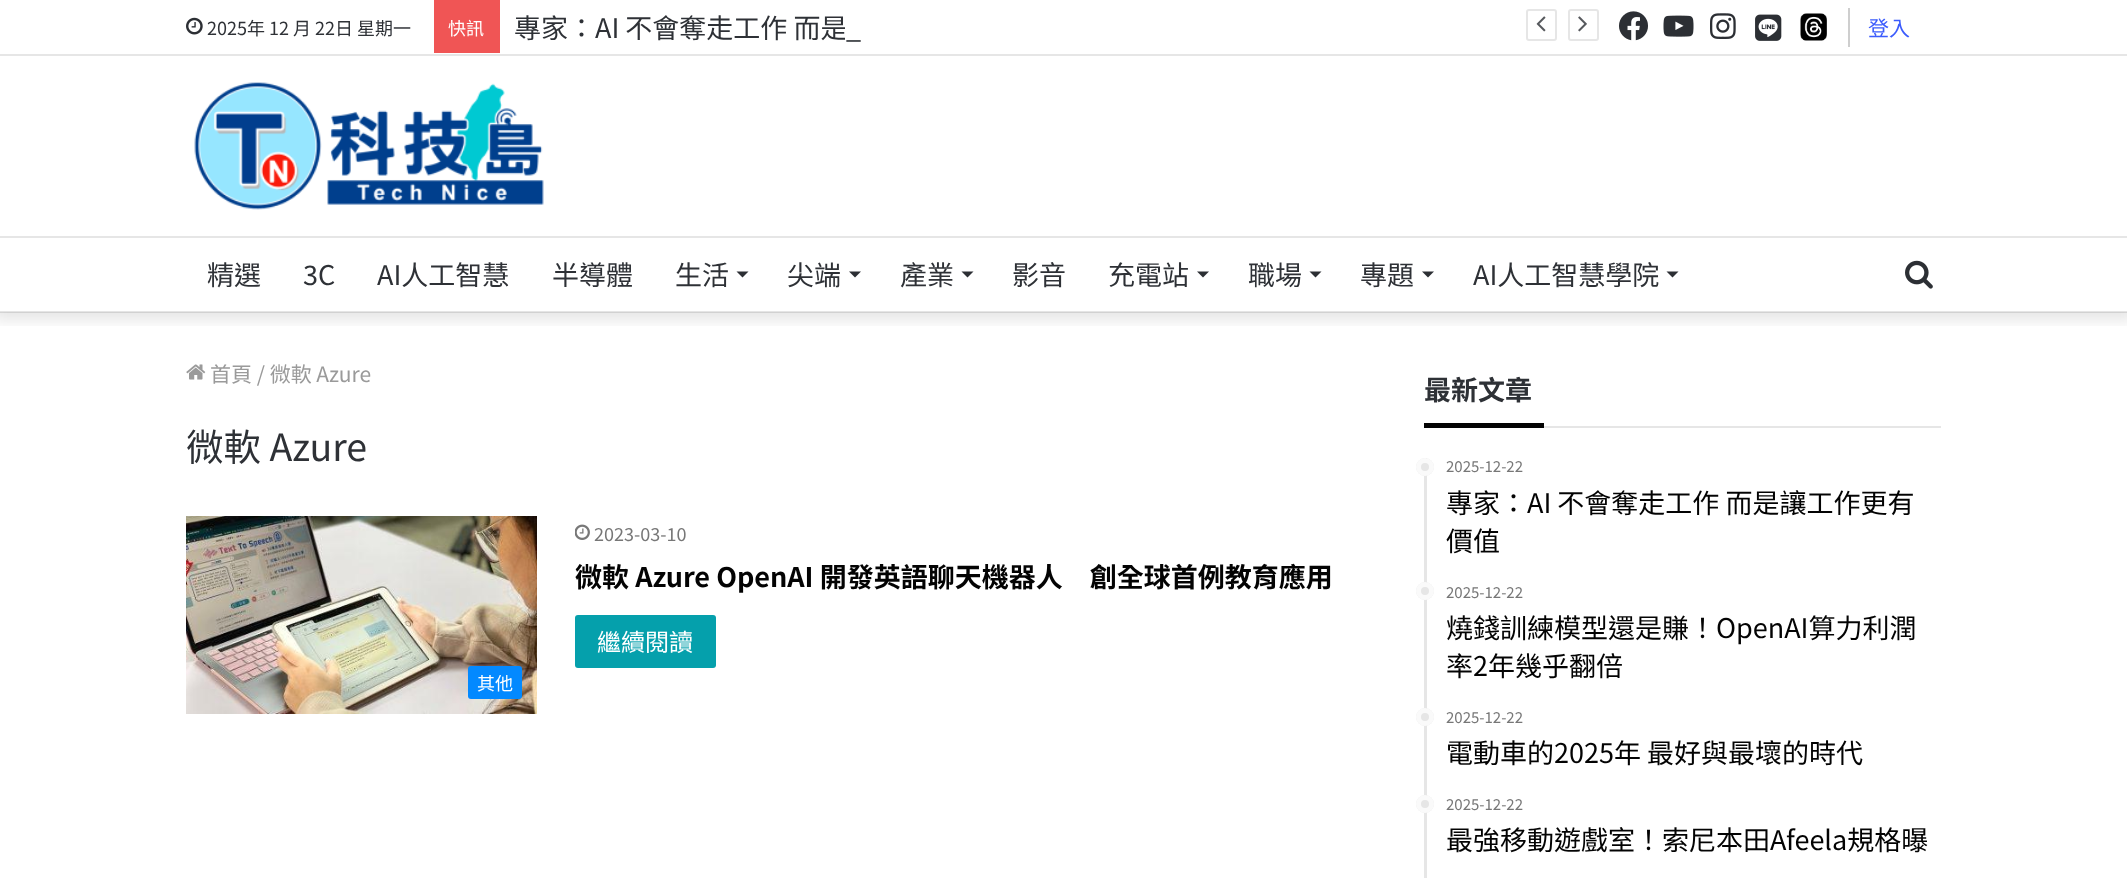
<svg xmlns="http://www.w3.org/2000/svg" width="2127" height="878">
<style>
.a{font:18px Noto Sans TC;fill:#2e3136}
.b{font:18px Noto Sans TC;fill:#fff}
.c{font:27px Noto Sans TC;fill:#2e3136}
.d{font:21px Noto Sans TC;fill:#3c5cfc}
.e{font:21px Noto Sans TC;fill:#9a9a9a}
.f{font:37.5px Noto Sans TC;fill:#2e3136}
.g{font:18px Noto Sans TC;fill:#777}
.h{font:bold 27px Noto Sans TC;fill:#030303}
.i{font:24px Noto Sans TC;fill:#fff}
.j{font:bold 27px Noto Sans TC;fill:#2e3136}
.k{font:15px Noto Sans TC;fill:#777}
.l{font:27px Noto Sans TC;fill:#030303}
</style>
<defs>
<clipPath id="clip1"><path d="M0 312h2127v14H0z"/></clipPath>
</defs>
<rect width="100%" height="100%" fill="#fff"/>
<g clip-path="url(#clip1)">
<path fill="#0000001a" filter="blur(7.5px)" d="M-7 -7h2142v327H-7z"/>
</g>
<path fill="#e6e6e6" d="M0 54h2127v2H0z"/>
<image href="1.png" x="186" y="17" width="17" height="18"/>
<path fill="#f05555" d="M434 0h66v53H434z"/>
<rect fill="none" stroke="#e6e6e6" stroke-width="2" x="1527" y="10" width="29" height="30" rx="2"/>
<image href="2.png" x="1536" y="16" width="10" height="16"/>
<rect fill="none" stroke="#e6e6e6" stroke-width="2" x="1569" y="10" width="29" height="30" rx="2"/>
<image href="3.png" x="1578" y="16" width="9" height="16"/>
<image href="4.png" x="1619" y="11" width="29" height="30"/>
<image href="5.png" x="1663" y="15" width="31" height="22"/>
<image href="6.png" x="1710" y="13" width="26" height="26"/>
<image href="7.png" x="1755" y="14" width="27" height="27"/>
<image href="8.png" x="1800" y="13" width="27" height="28"/>
<path fill="#cecece" d="M1848 8h2v39H1848z"/>
<image href="9.png" x="194" y="82" width="350" height="128"/>
<path fill="#e6e6e6" d="M0 236h2127v2H0z"/>
<path fill="#0000001a" d="M0 311h2127v2H0z"/>
<path fill="#2c2f34" d="M736.5 271.5h12l-6 6z"/>
<path fill="#2c2f34" d="M849 271.5h12l-6 6z"/>
<path fill="#2c2f34" d="M961.5 271.5h12l-6 6z"/>
<path fill="#2c2f34" d="M1197 271.5h12l-6 6z"/>
<path fill="#2c2f34" d="M1309.5 271.5h12l-6 6z"/>
<path fill="#2c2f34" d="M1422 271.5h12l-6 6z"/>
<path fill="#2c2f34" d="M1666.5 271.5h12l-6 6z"/>
<image href="10.png" x="1905" y="260" width="28" height="29"/>
<image href="11.png" x="186" y="364" width="20" height="16"/>
<image href="12.png" x="575" y="524" width="15" height="16"/>
<rect fill="#05a0ac" x="575" y="615" width="141" height="53" rx="3"/>
<image href="13.png" x="186" y="516" width="351" height="198"/>
<rect fill="#0389ff" x="468" y="666" width="54" height="33" rx="3"/>
<path fill="#e6e6e6" d="M1544 426h397v2H1544z"/>
<path fill="#030303" d="M1424 423h120v5H1424z"/>
<path fill="#e6e6e6" d="M1424 458h3v420H1424z"/>
<circle fill="#e6e6e6" cx="1425" cy="467" r="9"/>
<circle fill="none" stroke="#ffffffcc" stroke-width="5" cx="1425" cy="467" r="6.5"/>
<circle fill="#e6e6e6" cx="1425" cy="591" r="9"/>
<circle fill="none" stroke="#ffffffcc" stroke-width="5" cx="1425" cy="591" r="6.5"/>
<circle fill="#e6e6e6" cx="1425" cy="717" r="9"/>
<circle fill="none" stroke="#ffffffcc" stroke-width="5" cx="1425" cy="717" r="6.5"/>
<circle fill="#e6e6e6" cx="1425" cy="804" r="9"/>
<circle fill="none" stroke="#ffffffcc" stroke-width="5" cx="1425" cy="804" r="6.5"/>
<text class="a" x="207" y="35">2025年 12 月 22日 星期一</text>
<text class="b" x="448" y="35">快訊</text>
<text class="c" x="514" y="38">專家：AI 不會奪走工作 而是</text>
<path fill="#fff" d="M845 27h2v13H845z"/>
<text class="c" x="846" y="38">_</text>
<text class="d" x="1868" y="36">登入</text>
<text class="c" x="207" y="285">精選</text>
<text class="c" x="303" y="285">3C</text>
<text class="c" x="377" y="285">AI人工智慧</text>
<text class="c" x="552" y="285">半導體</text>
<text class="c" x="675" y="285">生活</text>
<text class="c" x="787" y="285">尖端</text>
<text class="c" x="900" y="285">產業</text>
<text class="c" x="1012" y="285">影音</text>
<text class="c" x="1108" y="285">充電站</text>
<text class="c" x="1248" y="285">職場</text>
<text class="c" x="1360" y="285">專題</text>
<text class="c" x="1473" y="285">AI人工智慧學院</text>
<text class="e" x="210" y="382">首頁 / 微軟 Azure</text>
<text class="f" x="186" y="461">微軟 Azure</text>
<text class="g" x="594" y="541">2023-03-10</text>
<text class="h" x="575" y="587">微軟 Azure OpenAI 開發英語聊天機器人　創全球首例教育應用</text>
<text class="i" x="597" y="651">繼續閱讀</text>
<text class="b" x="477" y="690">其他</text>
<text class="j" x="1424" y="400">最新文章</text>
<text class="k" x="1446" y="472">2025-12-22</text>
<text class="l" x="1446" y="513">專家：AI 不會奪走工作 而是讓工作更有</text>
<text class="l" x="1446" y="551">價值</text>
<text class="k" x="1446" y="598">2025-12-22</text>
<text class="l" x="1446" y="638">燒錢訓練模型還是賺！OpenAI算力利潤</text>
<text class="l" x="1446" y="676">率2年幾乎翻倍</text>
<text class="k" x="1446" y="723">2025-12-22</text>
<text class="l" x="1446" y="763">電動車的2025年 最好與最壞的時代</text>
<text class="k" x="1446" y="810">2025-12-22</text>
<text class="l" x="1446" y="850">最強移動遊戲室！索尼本田Afeela規格曝</text>
</svg>
